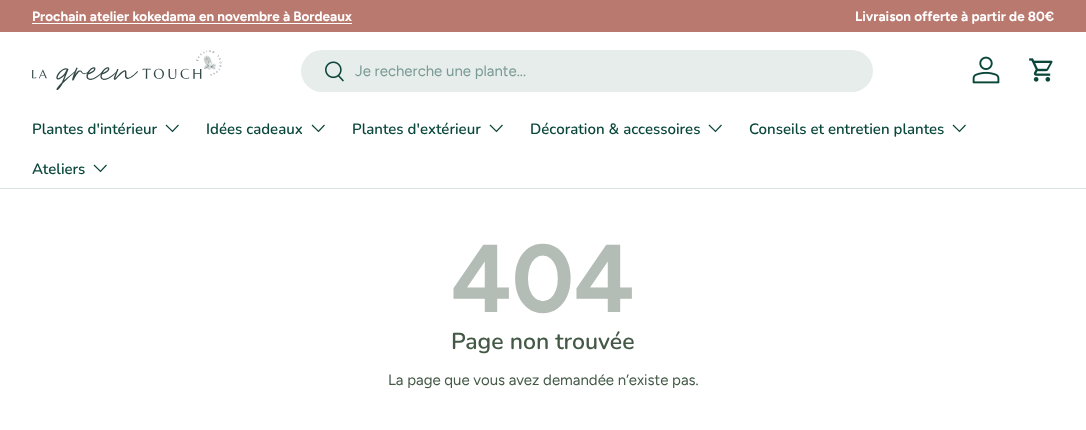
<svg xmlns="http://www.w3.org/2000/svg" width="1086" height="430">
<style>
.a{font:bold 13.5px Figtree;fill:#fff}
.b{font:15px Figtree;fill:#799a93}
.c{font:600 15px Nunito;fill:#0a473a}
.d{font:bold 96px Figtree;fill:#b4bdb5}
.e{font:600 23px Nunito;fill:#435946}
.f{font:15px Figtree;fill:#435946}
</style>
<rect width="100%" height="100%" fill="#fff"/>
<path fill="#ba796f" d="M0 0h1086v32H0z"/>
<path fill="#fff" d="M32 23h320v1H32z"/>
<path fill="#dae3e1" d="M0 188h1086v1H0z"/>
<image href="1.png" x="32" y="50" width="190" height="40"/>
<rect fill="#e7edeb" x="301" y="50" width="572" height="42" rx="21"/>
<image href="2.png" x="325" y="61" width="19" height="21"/>
<image href="3.png" x="972" y="56" width="28" height="28"/>
<image href="4.png" x="1029" y="58" width="24" height="24"/>
<path fill="none" stroke="#0a473a" stroke-width="1.2" d="M178.5 125l-6 6.5l-6.5-6.5"/>
<path fill="none" stroke="#0a473a" stroke-width="1.2" d="M324.5 125l-6 6.5l-6.5-6.5"/>
<path fill="none" stroke="#0a473a" stroke-width="1.2" d="M502.5 125l-6 6.5l-6.5-6.5"/>
<path fill="none" stroke="#0a473a" stroke-width="1.2" d="M721.5 125l-6 6.5l-6.5-6.5"/>
<path fill="none" stroke="#0a473a" stroke-width="1.2" d="M965.5 125l-6 6.5l-6.5-6.5"/>
<path fill="none" stroke="#0a473a" stroke-width="1.2" d="M106.5 165l-6 6.5l-6.5-6.5"/>
<text class="a" x="32" y="21">Prochain atelier kokedama en novembre à Bordeaux</text>
<text class="a" x="855" y="21">Livraison offerte à partir de 80€</text>
<text class="b" x="355" y="76">Je recherche une plante...</text>
<text class="c" x="32" y="134">Plantes d'intérieur</text>
<text class="c" x="206" y="134">Idées cadeaux</text>
<text class="c" x="352" y="134">Plantes d'extérieur</text>
<text class="c" x="530" y="134">Décoration &amp; accessoires</text>
<text class="c" x="749" y="134">Conseils et entretien plantes</text>
<text class="c" x="32" y="174">Ateliers</text>
<text class="d" x="451" y="312">404</text>
<text class="e" x="451" y="349">Page non trouvée</text>
<text class="f" x="388" y="385">La page que vous avez demandée n’existe pas.</text>
</svg>
